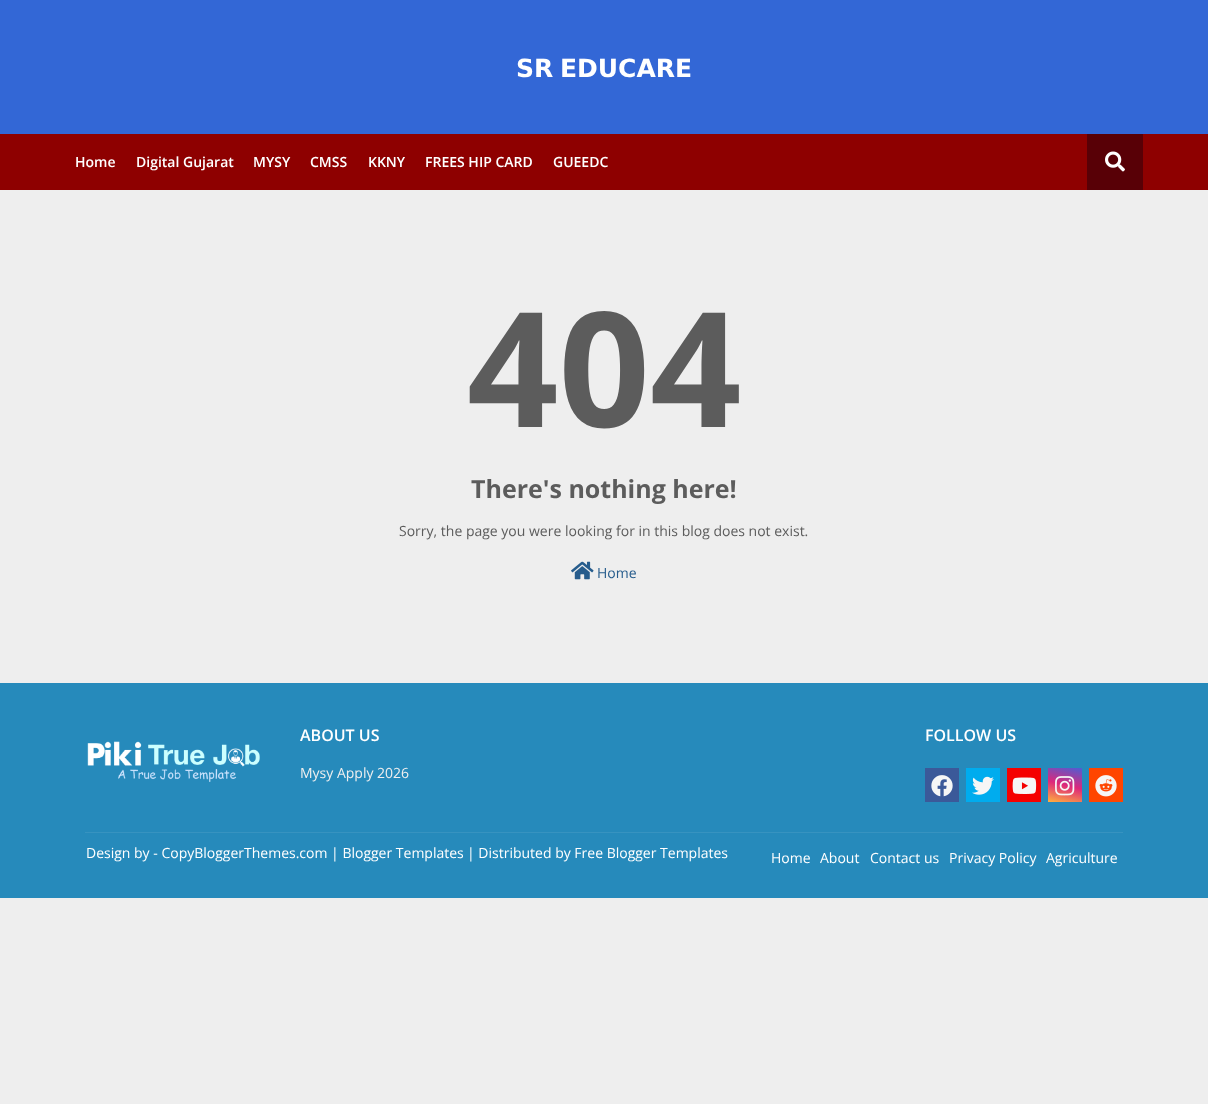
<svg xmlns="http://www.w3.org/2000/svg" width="1208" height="1104">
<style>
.a{font:bold 25px DejaVu Sans;fill:#fff}
.b{font:600 14px Open Sans;fill:#fff}
.c{font:bold 160px Open Sans;fill:#5c5c5c}
.d{font:bold 25px Open Sans;fill:#5c5c5c}
.e{font:14px Open Sans;fill:#5c5c5c}
.f{font:14px Open Sans;fill:#265c8c}
.g{font:600 16px Open Sans;fill:#fff}
.h{font:14px Open Sans;fill:#efefef}
.i{font:14px Open Sans;fill:#fff}
</style>
<defs>
<linearGradient id="g1" gradientUnits="userSpaceOnUse" x1="1060" y1="805" x2="1070" y2="765"><stop offset="0" stop-color="#ffb13d"/><stop offset="0.5" stop-color="#dd277b"/><stop offset="1" stop-color="#4d5ed4"/></linearGradient>
</defs>
<rect width="100%" height="100%" fill="#eee"/>
<path fill="#3367d6" d="M0 0h1208v134H0z"/>
<path fill="#8e0000" d="M0 134h1208v56H0z"/>
<path fill="#580006" d="M1087 134h56v56H1087z"/>
<image href="1.png" x="1105" y="151" width="20" height="21"/>
<image href="2.png" x="571" y="561" width="23" height="19"/>
<path fill="#268abb" d="M0 683h1208v215H0z"/>
<image href="3.png" x="87" y="741" width="173" height="41"/>
<path fill="#3b5999" d="M925 768h34v34H925z"/>
<image href="4.png" x="931" y="775" width="22" height="22"/>
<path fill="#00acee" d="M966 768h34v34H966z"/>
<image href="5.png" x="972" y="776" width="22" height="19"/>
<path fill="#f50000" d="M1007 768h34v34H1007z"/>
<image href="6.png" x="1012" y="777" width="25" height="17"/>
<path fill="url(#g1)" d="M1048 768h34v34H1048z"/>
<image href="7.png" x="1055" y="776" width="20" height="20"/>
<path fill="#ff4500" d="M1089 768h34v34H1089z"/>
<image href="8.png" x="1095" y="775" width="22" height="22"/>
<path fill="#3793c0" d="M85 832h1038v1H85z"/>
<text class="a" x="516" y="77" word-spacing="-2">𝗦𝗥 𝗘𝗗𝗨𝗖𝗔𝗥𝗘</text>
<text class="b" x="75" y="167">Home</text>
<text class="b" x="136" y="167">Digital Gujarat</text>
<text class="b" x="253" y="167">MYSY</text>
<text class="b" x="310" y="167">CMSS</text>
<text class="b" x="368" y="167">KKNY</text>
<text class="b" x="425" y="167">FREES HIP CARD</text>
<text class="b" x="553" y="167">GUEEDC</text>
<text class="c" x="467" y="427">404</text>
<text class="d" x="471" y="498">There's nothing here!</text>
<text class="e" x="399" y="536">Sorry, the page you were looking for in this blog does not exist.</text>
<text class="f" x="597" y="578">Home</text>
<text class="g" x="300" y="741">ABOUT US</text>
<text class="h" x="300" y="778">Mysy Apply 2026</text>
<text class="g" x="925" y="741">FOLLOW US</text>
<text class="i" x="86" y="858">Design by - CopyBloggerThemes.com | Blogger Templates</text>
<text class="i" x="467" y="858">| Distributed by Free Blogger Templates</text>
<text class="i" x="771" y="863">Home</text>
<text class="i" x="820" y="863">About</text>
<text class="i" x="870" y="863">Contact us</text>
<text class="i" x="949" y="863">Privacy Policy</text>
<text class="i" x="1046" y="863">Agriculture</text>
</svg>
